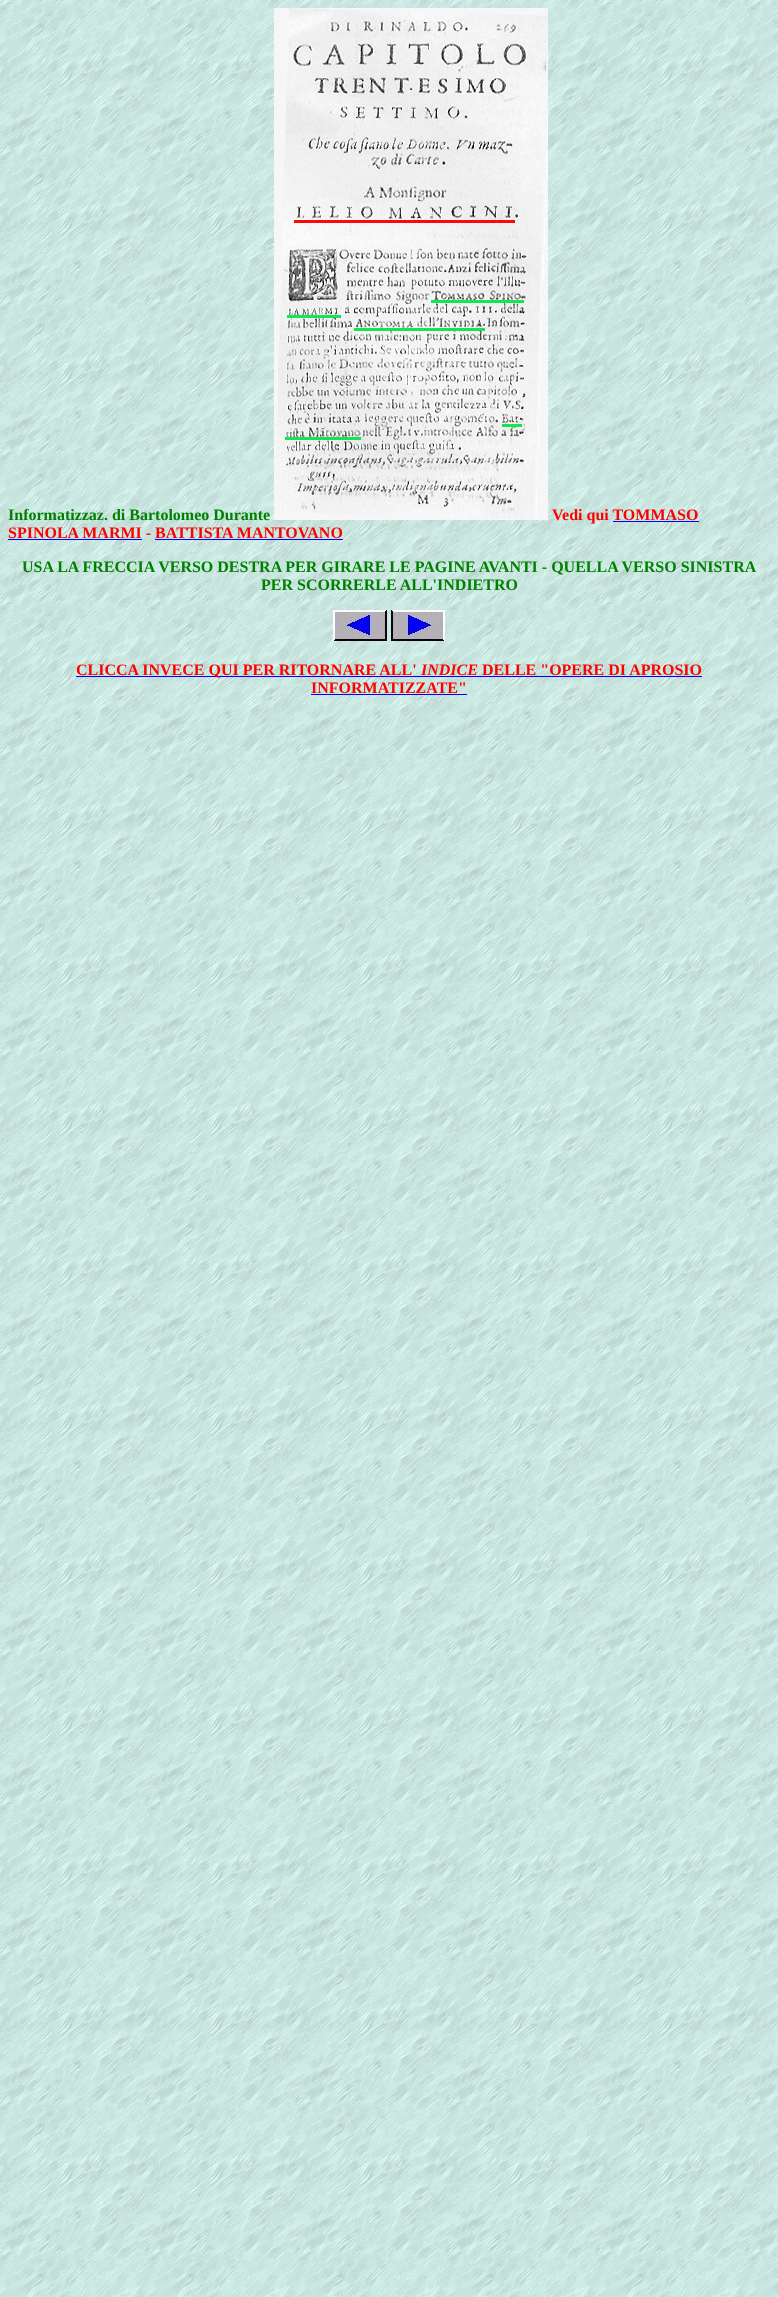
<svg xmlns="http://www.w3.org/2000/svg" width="778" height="2297">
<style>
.a{font:bold 16px Liberation Serif;fill:#008000}
.b{font:bold 16px Liberation Serif;fill:#f00}
.c{font:italic bold 16px Liberation Serif;fill:#f00}
</style>
<rect width="100%" height="100%" fill="#fff"/>
<image href="1.png" x="0" y="0" width="778" height="2297"/>
<image href="2.png" x="274" y="8" width="274" height="512"/>
<path fill="#00f" d="M8 539h134v1H8z"/>
<path fill="#00f" d="M155 539h188v1H155z"/>
<image href="3.png" x="333" y="610" width="54" height="31"/>
<image href="4.png" x="391" y="610" width="54" height="31"/>
<path fill="#00f" d="M76 676h626v1H76z"/>
<path fill="#00f" d="M311 694h156v1H311z"/>
<text class="a" x="8" y="520">Informatizzaz. di Bartolomeo Durante</text>
<text class="b" x="552" y="520">Vedi qui TOMMASO</text>
<text class="b" x="8" y="538">SPINOLA MARMI - BATTISTA MANTOVANO</text>
<path fill="#00f" d="M613 521h86v1H613z"/>
<text class="a" x="22" y="572">USA LA FRECCIA VERSO DESTRA PER GIRARE LE PAGINE AVANTI - QUELLA VERSO SINISTRA</text>
<text class="a" x="261" y="590">PER SCORRERLE ALL'INDIETRO</text>
<text class="b" x="76" y="675">CLICCA INVECE QUI PER RITORNARE ALL'</text>
<text class="c" x="421" y="675">INDICE</text>
<text class="b" x="482" y="675">DELLE "OPERE DI APROSIO</text>
<text class="b" x="311" y="693">INFORMATIZZATE"</text>
</svg>
